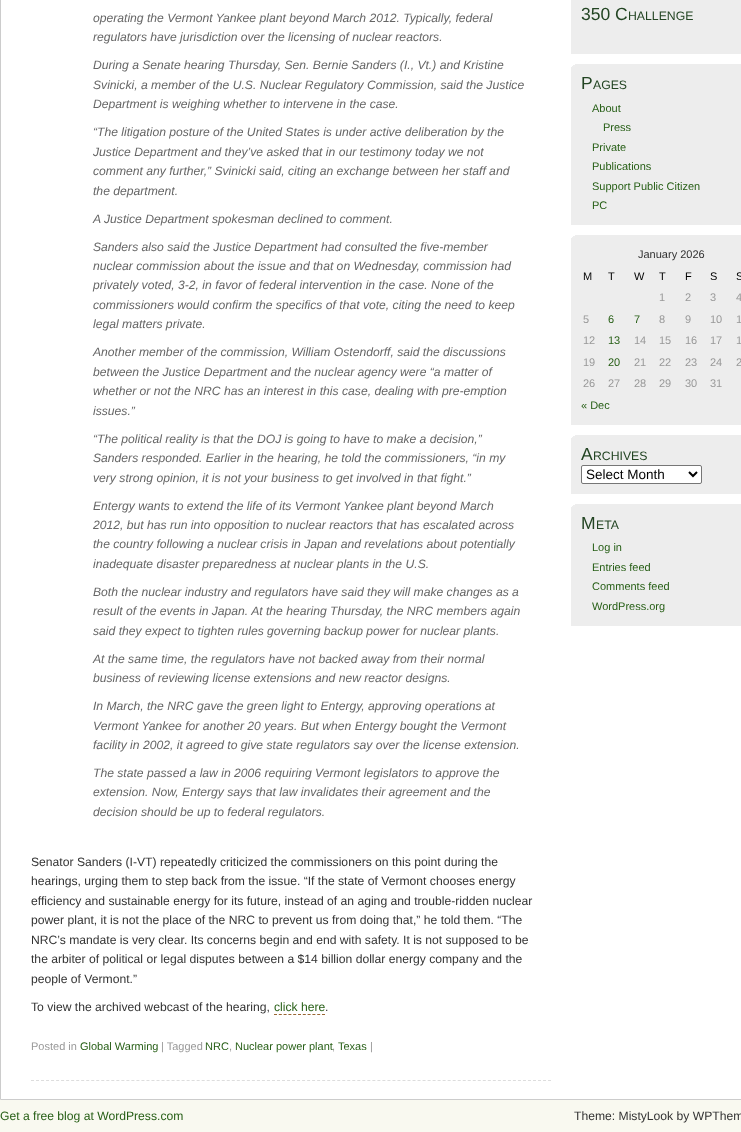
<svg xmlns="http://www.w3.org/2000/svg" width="741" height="1132">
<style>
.a{font:italic 12.15px Liberation Sans;fill:#666}
.b{font:12.15px Liberation Sans;fill:#333}
.c{font:12.15px Liberation Sans;fill:#265e15}
.d{font:11px Liberation Sans;fill:#999}
.e{font:11px Liberation Sans;fill:#265e15}
.f{font:17.5px Liberation Sans;fill:#242}
.g{font:12.25px Liberation Sans;fill:#242}
.h{font:11px Liberation Sans;fill:#333}
.i{font:11px Liberation Sans;fill:#000}
.j{font:13.5px Liberation Sans;fill:#000}
</style>
<rect width="100%" height="100%" fill="#f9f9f0"/>
<path fill="#fff" stroke="#ccc" d="M0.5 -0.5h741v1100H0.5z"/>
<path fill="none" stroke="#ddd" stroke-dasharray="3 2.02" d="M31 1080.5h520"/>
<path fill="none" stroke="#963" stroke-dasharray="3 1.8" d="M274 1014.5h51"/>
<path fill="#ededed" d="M571 0h170v54H571z"/>
<path fill="#ededed" d="M571 64h170v161H571z"/>
<image href="1.png" x="571" y="64" width="4" height="3"/>
<path fill="#ededed" d="M571 235h170v190H571z"/>
<image href="1.png" x="571" y="235" width="4" height="3"/>
<path fill="#ededed" d="M571 435h170v59H571z"/>
<image href="1.png" x="571" y="435" width="4" height="3"/>
<rect fill="#fff" stroke="#767676" x="581.5" y="465.5" width="120" height="18" rx="1.5"/>
<path fill="none" stroke="#000" stroke-width="2" d="M689 472l4 4l4-4"/>
<path fill="#ededed" d="M571 504h170v122H571z"/>
<image href="1.png" x="571" y="504" width="4" height="3"/>
<text class="a" x="93" y="22">operating the Vermont Yankee plant beyond March 2012. Typically, federal</text>
<text class="a" x="93" y="41">regulators have jurisdiction over the licensing of nuclear reactors.</text>
<text class="a" x="93" y="69">During a Senate hearing Thursday, Sen. Bernie Sanders (I., Vt.) and Kristine</text>
<text class="a" x="93" y="89">Svinicki, a member of the U.S. Nuclear Regulatory Commission, said the Justice</text>
<text class="a" x="93" y="108">Department is weighing whether to intervene in the case.</text>
<text class="a" x="93" y="136">“The litigation posture of the United States is under active deliberation by the</text>
<text class="a" x="93" y="156">Justice Department and they’ve asked that in our testimony today we not</text>
<text class="a" x="93" y="175">comment any further,” Svinicki said, citing an exchange between her staff and</text>
<text class="a" x="93" y="195">the department.</text>
<text class="a" x="93" y="223">A Justice Department spokesman declined to comment.</text>
<text class="a" x="93" y="251">Sanders also said the Justice Department had consulted the five-member</text>
<text class="a" x="93" y="270">nuclear commission about the issue and that on Wednesday, commission had</text>
<text class="a" x="93" y="289">privately voted, 3-2, in favor of federal intervention in the case. None of the</text>
<text class="a" x="93" y="309">commissioners would confirm the specifics of that vote, citing the need to keep</text>
<text class="a" x="93" y="328">legal matters private.</text>
<text class="a" x="93" y="356">Another member of the commission, William Ostendorff, said the discussions</text>
<text class="a" x="93" y="376">between the Justice Department and the nuclear agency were “a matter of</text>
<text class="a" x="93" y="395">whether or not the NRC has an interest in this case, dealing with pre-emption</text>
<text class="a" x="93" y="415">issues.”</text>
<text class="a" x="93" y="443">“The political reality is that the DOJ is going to have to make a decision,”</text>
<text class="a" x="93" y="462">Sanders responded. Earlier in the hearing, he told the commissioners, “in my</text>
<text class="a" x="93" y="482">very strong opinion, it is not your business to get involved in that fight.”</text>
<text class="a" x="93" y="510">Entergy wants to extend the life of its Vermont Yankee plant beyond March</text>
<text class="a" x="93" y="529">2012, but has run into opposition to nuclear reactors that has escalated across</text>
<text class="a" x="93" y="548">the country following a nuclear crisis in Japan and revelations about potentially</text>
<text class="a" x="93" y="568">inadequate disaster preparedness at nuclear plants in the U.S.</text>
<text class="a" x="93" y="596">Both the nuclear industry and regulators have said they will make changes as a</text>
<text class="a" x="93" y="615">result of the events in Japan. At the hearing Thursday, the NRC members again</text>
<text class="a" x="93" y="635">said they expect to tighten rules governing backup power for nuclear plants.</text>
<text class="a" x="93" y="663">At the same time, the regulators have not backed away from their normal</text>
<text class="a" x="93" y="682">business of reviewing license extensions and new reactor designs.</text>
<text class="a" x="93" y="710">In March, the NRC gave the green light to Entergy, approving operations at</text>
<text class="a" x="93" y="730">Vermont Yankee for another 20 years. But when Entergy bought the Vermont</text>
<text class="a" x="93" y="749">facility in 2002, it agreed to give state regulators say over the license extension.</text>
<text class="a" x="93" y="777">The state passed a law in 2006 requiring Vermont legislators to approve the</text>
<text class="a" x="93" y="796">extension. Now, Entergy says that law invalidates their agreement and the</text>
<text class="a" x="93" y="816">decision should be up to federal regulators.</text>
<text class="b" x="31" y="866">Senator Sanders (I-VT) repeatedly criticized the commissioners on this point during the</text>
<text class="b" x="31" y="885">hearings, urging them to step back from the issue. “If the state of Vermont chooses energy</text>
<text class="b" x="31" y="905">efficiency and sustainable energy for its future, instead of an aging and trouble-ridden nuclear</text>
<text class="b" x="31" y="924">power plant, it is not the place of the NRC to prevent us from doing that,” he told them. “The</text>
<text class="b" x="31" y="944">NRC’s mandate is very clear. Its concerns begin and end with safety. It is not supposed to be</text>
<text class="b" x="31" y="963">the arbiter of political or legal disputes between a $14 billion dollar energy company and the</text>
<text class="b" x="31" y="983">people of Vermont.”</text>
<text class="b" x="31" y="1011">To view the archived webcast of the hearing,</text>
<text class="c" x="274" y="1011">click here</text>
<text class="b" x="325" y="1011">.</text>
<text class="d" x="31" y="1050">Posted in</text>
<text class="e" x="80" y="1050">Global Warming</text>
<text class="d" x="161" y="1050">| Tagged</text>
<text class="e" x="205" y="1050">NRC</text>
<text class="d" x="229" y="1050">,</text>
<text class="e" x="235" y="1050">Nuclear power plant</text>
<text class="d" x="332" y="1050">,</text>
<text class="e" x="338" y="1050">Texas</text>
<text class="d" x="370" y="1050">|</text>
<text class="f" x="581" y="20">350 C</text>
<text class="g" x="628" y="20">HALLENGE</text>
<text class="f" x="581" y="89">P</text>
<text class="g" x="593" y="89">AGES</text>
<text class="e" x="592" y="112">About</text>
<text class="e" x="603" y="131">Press</text>
<text class="e" x="592" y="151">Private</text>
<text class="e" x="592" y="170">Publications</text>
<text class="e" x="592" y="190">Support Public Citizen</text>
<text class="e" x="592" y="209">PC</text>
<text class="h" x="638" y="258">January 2026</text>
<text class="i" x="583" y="280">M</text>
<text class="i" x="608" y="280">T</text>
<text class="i" x="634" y="280">W</text>
<text class="i" x="659" y="280">T</text>
<text class="i" x="685" y="280">F</text>
<text class="i" x="710" y="280">S</text>
<text class="i" x="736" y="280">S</text>
<text class="d" x="659" y="301">1</text>
<text class="d" x="685" y="301">2</text>
<text class="d" x="710" y="301">3</text>
<text class="d" x="736" y="301">4</text>
<text class="d" x="583" y="323">5</text>
<text class="e" x="608" y="323">6</text>
<text class="e" x="634" y="323">7</text>
<text class="d" x="659" y="323">8</text>
<text class="d" x="685" y="323">9</text>
<text class="d" x="710" y="323">10</text>
<text class="d" x="736" y="323">1</text>
<text class="d" x="583" y="344">12</text>
<text class="e" x="608" y="344">13</text>
<text class="d" x="634" y="344">14</text>
<text class="d" x="659" y="344">15</text>
<text class="d" x="685" y="344">16</text>
<text class="d" x="710" y="344">17</text>
<text class="d" x="736" y="344">1</text>
<text class="d" x="583" y="366">19</text>
<text class="e" x="608" y="366">20</text>
<text class="d" x="634" y="366">21</text>
<text class="d" x="659" y="366">22</text>
<text class="d" x="685" y="366">23</text>
<text class="d" x="710" y="366">24</text>
<text class="d" x="736" y="366">2</text>
<text class="d" x="583" y="387">26</text>
<text class="d" x="608" y="387">27</text>
<text class="d" x="634" y="387">28</text>
<text class="d" x="659" y="387">29</text>
<text class="d" x="685" y="387">30</text>
<text class="d" x="710" y="387">31</text>
<text class="e" x="581" y="409">« Dec</text>
<text class="f" x="581" y="460">A</text>
<text class="g" x="593" y="460">RCHIVES</text>
<text class="j" x="586" y="479">Select Month</text>
<text class="f" x="581" y="529">M</text>
<text class="g" x="596" y="529">ETA</text>
<text class="e" x="592" y="551">Log in</text>
<text class="e" x="592" y="571">Entries feed</text>
<text class="e" x="592" y="590">Comments feed</text>
<text class="e" x="592" y="610">WordPress.org</text>
<text class="c" x="0" y="1120">Get a free blog at WordPress.com</text>
<text class="b" x="574" y="1120">Theme: MistyLook by WPThem</text>
</svg>
